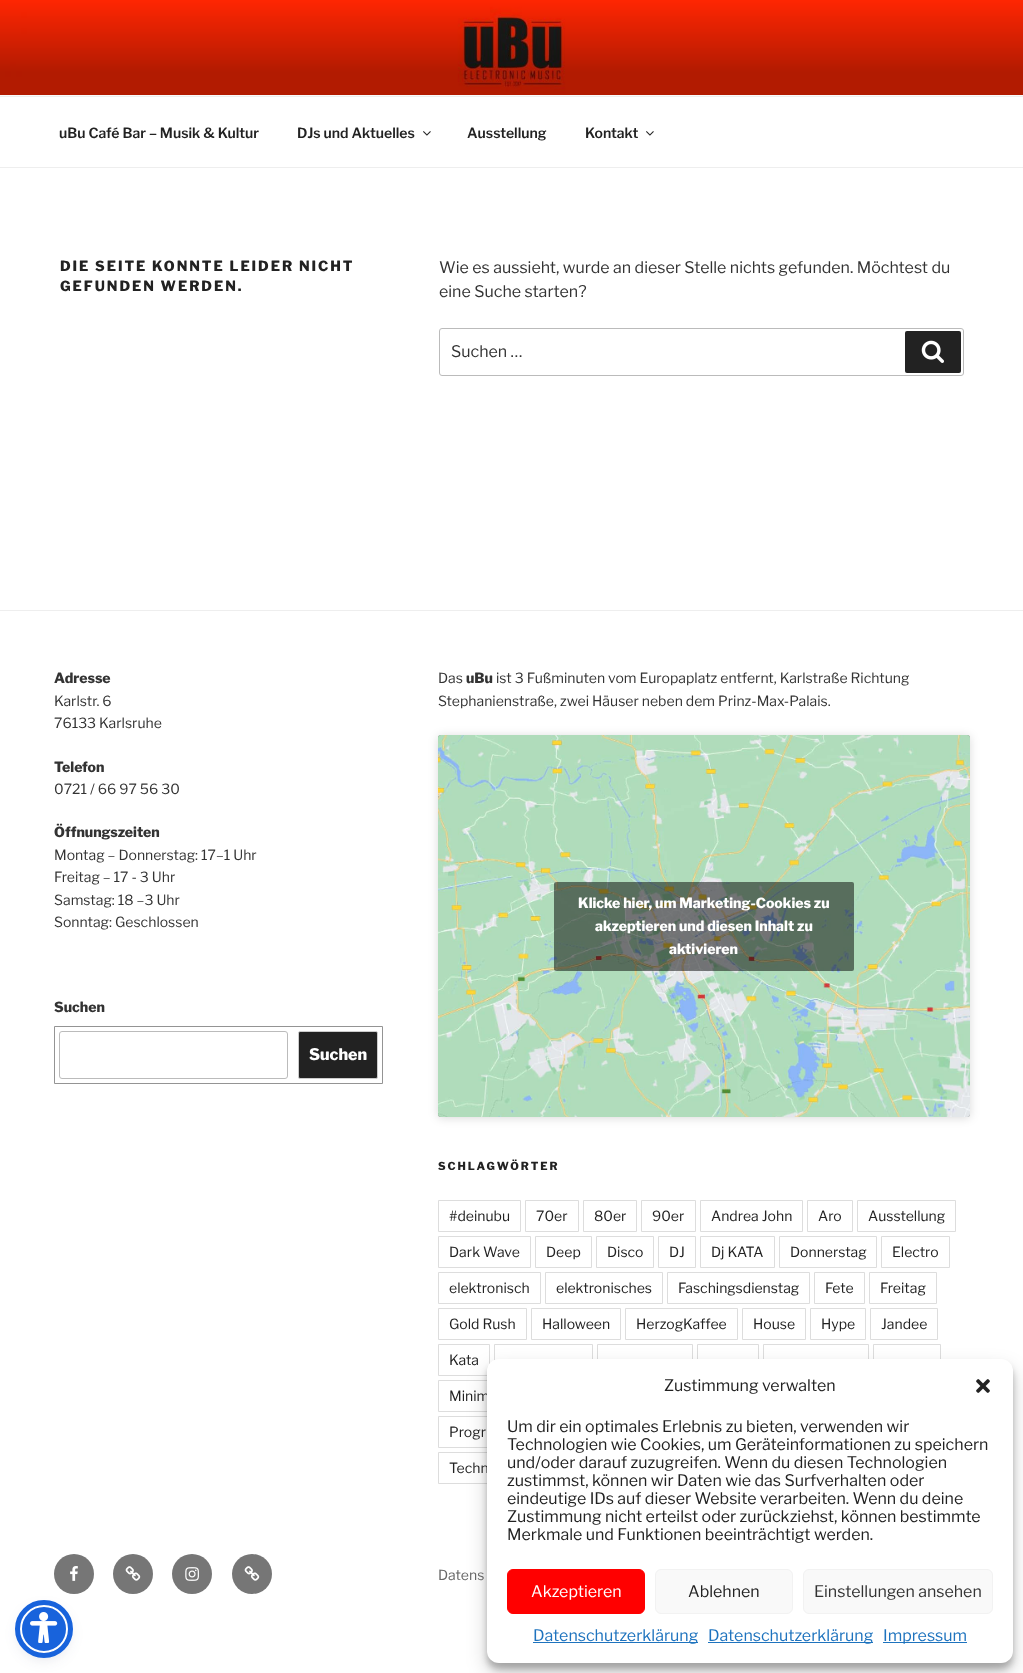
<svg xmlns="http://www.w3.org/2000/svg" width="1023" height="1673">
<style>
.a{font:100 14px 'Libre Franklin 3';fill:#222}
.b{font:100 14px Libre Franklin;letter-spacing:1.95px;fill:#222}
.c{font:100 16px 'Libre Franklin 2';fill:#333}
.d{font:100 14px Libre Franklin;fill:#333}
.e{font:100 14px 'Libre Franklin 2';fill:#333}
.f{font:100 16px Libre Franklin;fill:#fff}
.g{font:100 14px Libre Franklin;fill:#fff}
.h{font:100 11px Libre Franklin;letter-spacing:2px;fill:#222}
.i{font:100 14px 'Libre Franklin 2';fill:#222}
.j{font:100 14px 'Libre Franklin 2';fill:#666}
.k{font:100 16px 'Libre Franklin 2';fill:#222}
.l{font:100 16px 'Libre Franklin 2';fill:#fff}
.m{font:100 16px 'Libre Franklin 2';fill:#1e73be}
</style>
<rect width="100%" height="100%" fill="#fff"/>
<path fill="#fafafa" d="M0 95h1023v1H0z"/>
<image href="1.png" x="0" y="0" width="1023" height="95"/>
<path fill="#eee" d="M0 96h1023v1H0z"/>
<path fill="#eee" d="M0 167h1023v1H0z"/>
<image href="2.png" x="423" y="131" width="8" height="5"/>
<image href="2.png" x="646" y="131" width="8" height="5"/>
<rect fill="none" stroke="#bbb" x="439.5" y="328.5" width="524" height="47" rx="2.5"/>
<rect fill="#222" x="905" y="331" width="56" height="42" rx="2"/>
<image href="3.png" x="921" y="340" width="23" height="23"/>
<path fill="#eee" d="M0 610h1023v1H0z"/>
<path fill="none" stroke="#949494" d="M54.5 1026.5h328v57H54.5z"/>
<rect fill="none" stroke="#bbb" x="59.5" y="1031.5" width="228" height="47" rx="2.5"/>
<rect fill="#222" stroke="#ccc" x="298.5" y="1031.5" width="79" height="47" rx="1.5"/>
<rect fill="#00000026" filter="blur(5px)" x="438" y="736" width="532" height="382" rx="3"/>
<rect fill="#00000080" filter="blur(0.5px)" x="438" y="735" width="532" height="382" rx="3"/>
<image href="4.png" x="438" y="735" width="532" height="382"/>
<rect fill="#00000080" x="554" y="882" width="300" height="89" rx="2"/>
<path fill="none" stroke="#ddd" d="M438.5 1200.5h82v31H438.5z"/>
<path fill="none" stroke="#ddd" d="M525.5 1200.5h53v31H525.5z"/>
<path fill="none" stroke="#ddd" d="M583.5 1200.5h53v31H583.5z"/>
<path fill="none" stroke="#ddd" d="M641.5 1200.5h54v31H641.5z"/>
<path fill="none" stroke="#ddd" d="M700.5 1200.5h102v31H700.5z"/>
<path fill="none" stroke="#ddd" d="M807.5 1200.5h45v31H807.5z"/>
<path fill="none" stroke="#ddd" d="M857.5 1200.5h98v31H857.5z"/>
<path fill="none" stroke="#ddd" d="M438.5 1236.5h92v31H438.5z"/>
<path fill="none" stroke="#ddd" d="M535.5 1236.5h56v31H535.5z"/>
<path fill="none" stroke="#ddd" d="M596.5 1236.5h57v31H596.5z"/>
<path fill="none" stroke="#ddd" d="M658.5 1236.5h37v31H658.5z"/>
<path fill="none" stroke="#ddd" d="M700.5 1236.5h74v31H700.5z"/>
<path fill="none" stroke="#ddd" d="M779.5 1236.5h97v31H779.5z"/>
<path fill="none" stroke="#ddd" d="M881.5 1236.5h68v31H881.5z"/>
<path fill="none" stroke="#ddd" d="M438.5 1272.5h102v31H438.5z"/>
<path fill="none" stroke="#ddd" d="M545.5 1272.5h117v31H545.5z"/>
<path fill="none" stroke="#ddd" d="M667.5 1272.5h142v31H667.5z"/>
<path fill="none" stroke="#ddd" d="M814.5 1272.5h50v31H814.5z"/>
<path fill="none" stroke="#ddd" d="M869.5 1272.5h67v31H869.5z"/>
<path fill="none" stroke="#ddd" d="M438.5 1308.5h88v31H438.5z"/>
<path fill="none" stroke="#ddd" d="M531.5 1308.5h89v31H531.5z"/>
<path fill="none" stroke="#ddd" d="M625.5 1308.5h112v31H625.5z"/>
<path fill="none" stroke="#ddd" d="M742.5 1308.5h63v31H742.5z"/>
<path fill="none" stroke="#ddd" d="M810.5 1308.5h55v31H810.5z"/>
<path fill="none" stroke="#ddd" d="M870.5 1308.5h67v31H870.5z"/>
<path fill="none" stroke="#ddd" d="M438.5 1344.5h51v31H438.5z"/>
<path fill="none" stroke="#ddd" d="M494.5 1344.5h98v31H494.5z"/>
<path fill="none" stroke="#ddd" d="M597.5 1344.5h95v31H597.5z"/>
<path fill="none" stroke="#ddd" d="M697.5 1344.5h61v31H697.5z"/>
<path fill="none" stroke="#ddd" d="M763.5 1344.5h105v31H763.5z"/>
<path fill="none" stroke="#ddd" d="M873.5 1344.5h67v31H873.5z"/>
<path fill="none" stroke="#ddd" d="M438.5 1380.5h73v31H438.5z"/>
<path fill="none" stroke="#ddd" d="M438.5 1416.5h91v31H438.5z"/>
<path fill="none" stroke="#ddd" d="M438.5 1452.5h69v31H438.5z"/>
<circle fill="#767676" cx="74" cy="1574" r="20"/>
<image href="5.png" x="70" y="1566" width="8" height="15"/>
<circle fill="#767676" cx="133" cy="1574" r="20"/>
<image href="6.png" x="125" y="1566" width="16" height="15"/>
<circle fill="#767676" cx="192" cy="1574" r="20"/>
<image href="7.png" x="185" y="1567" width="14" height="14"/>
<circle fill="#767676" cx="252" cy="1574" r="20"/>
<image href="6.png" x="244" y="1566" width="16" height="15"/>
<rect fill="#5d649433" filter="blur(2px)" x="20" y="1607" width="48" height="48" rx="24"/>
<rect fill="#252c6126" filter="blur(7.5px)" x="20" y="1610" width="48" height="48" rx="24"/>
<circle fill="#1863dc" stroke="#fff" stroke-width="2" cx="44" cy="1629" r="23"/>
<circle fill="none" stroke="#1863dc" stroke-width="5" cx="44" cy="1629" r="26.5"/>
<image href="8.png" x="30" y="1612" width="28" height="31"/>
<rect fill="#0000003b" filter="blur(3px)" x="487" y="1365" width="526" height="304" rx="12"/>
<rect fill="#00000030" filter="blur(10px)" x="487" y="1369" width="526" height="304" rx="12"/>
<text class="a" x="59" y="138">uBu Café Bar – Musik &amp; Kultur</text>
<text class="a" x="297" y="138">DJs und Aktuelles</text>
<text class="a" x="467" y="138">Ausstellung</text>
<text class="a" x="585" y="138">Kontakt</text>
<text class="b" x="60" y="271">DIE SEITE KONNTE LEIDER NICHT</text>
<text class="b" x="60" y="291">GEFUNDEN WERDEN.</text>
<text class="c" x="439" y="273">Wie es aussieht, wurde an dieser Stelle nichts gefunden. Möchtest du</text>
<text class="c" x="439" y="297">eine Suche starten?</text>
<text class="c" x="451" y="357">Suchen …</text>
<text class="d" x="54" y="683">Adresse</text>
<text class="e" x="54" y="706">Karlstr. 6</text>
<text class="e" x="54" y="728">76133 Karlsruhe</text>
<text class="d" x="54" y="772">Telefon</text>
<text class="e" x="54" y="794">0721 / 66 97 56 30</text>
<text class="d" x="54" y="837">Öffnungszeiten</text>
<text class="e" x="54" y="860">Montag – Donnerstag: 17–1 Uhr</text>
<text class="e" x="54" y="882">Freitag – 17 - 3 Uhr</text>
<text class="e" x="54" y="905">Samstag: 18 –3 Uhr</text>
<text class="e" x="54" y="927">Sonntag: Geschlossen</text>
<text class="d" x="54" y="1012">Suchen</text>
<text class="f" x="309" y="1060">Suchen</text>
<text class="e" x="438" y="683">Das</text>
<text class="d" x="466" y="683">uBu</text>
<text class="e" x="496" y="683">ist 3 Fußminuten vom Europaplatz entfernt, Karlstraße Richtung</text>
<text class="e" x="438" y="706">Stephanienstraße, zwei Häuser neben dem Prinz-Max-Palais.</text>
<text class="g" x="578" y="908">Klicke hier, um Marketing-Cookies zu</text>
<text class="g" x="595" y="931">akzeptieren und diesen Inhalt zu</text>
<text class="g" x="669" y="954">aktivieren</text>
<text class="h" x="438" y="1170">SCHLAGWÖRTER</text>
<text class="i" x="449" y="1221">#deinubu</text>
<text class="i" x="536" y="1221">70er</text>
<text class="i" x="594" y="1221">80er</text>
<text class="i" x="652" y="1221">90er</text>
<text class="i" x="711" y="1221">Andrea John</text>
<text class="i" x="818" y="1221">Aro</text>
<text class="i" x="868" y="1221">Ausstellung</text>
<text class="i" x="449" y="1257">Dark Wave</text>
<text class="i" x="546" y="1257">Deep</text>
<text class="i" x="607" y="1257">Disco</text>
<text class="i" x="669" y="1257">DJ</text>
<text class="i" x="711" y="1257">Dj KATA</text>
<text class="i" x="790" y="1257">Donnerstag</text>
<text class="i" x="892" y="1257">Electro</text>
<text class="i" x="449" y="1293">elektronisch</text>
<text class="i" x="556" y="1293">elektronisches</text>
<text class="i" x="678" y="1293">Faschingsdienstag</text>
<text class="i" x="825" y="1293">Fete</text>
<text class="i" x="880" y="1293">Freitag</text>
<text class="i" x="449" y="1329">Gold Rush</text>
<text class="i" x="542" y="1329">Halloween</text>
<text class="i" x="636" y="1329">HerzogKaffee</text>
<text class="i" x="753" y="1329">House</text>
<text class="i" x="821" y="1329">Hype</text>
<text class="i" x="881" y="1329">Jandee</text>
<text class="i" x="449" y="1365">Kata</text>
<text class="i" x="449" y="1401">Minim</text>
<text class="i" x="449" y="1437">Progr</text>
<text class="i" x="449" y="1473">Techn</text>
<text class="j" x="438" y="1580">Datens</text>
<rect fill="#fff" x="487" y="1359" width="526" height="304" rx="12"/>
<text class="k" x="664" y="1391">Zustimmung verwalten</text>
<image href="9.png" x="976" y="1379" width="14" height="14"/>
<text class="k" x="507" y="1432">Um dir ein optimales Erlebnis zu bieten, verwenden wir</text>
<text class="k" x="507" y="1450">Technologien wie Cookies, um Geräteinformationen zu speichern</text>
<text class="k" x="507" y="1468">und/oder darauf zuzugreifen. Wenn du diesen Technologien</text>
<text class="k" x="507" y="1486">zustimmst, können wir Daten wie das Surfverhalten oder</text>
<text class="k" x="507" y="1504">eindeutige IDs auf dieser Website verarbeiten. Wenn du deine</text>
<text class="k" x="507" y="1522">Zustimmung nicht erteilst oder zurückziehst, können bestimmte</text>
<text class="k" x="507" y="1540">Merkmale und Funktionen beeinträchtigt werden.</text>
<rect fill="#f00" stroke="#f00" x="507.5" y="1569.5" width="137" height="44" rx="5.5"/>
<text class="l" x="531" y="1597">Akzeptieren</text>
<rect fill="#f9f9f9" stroke="#f2f2f2" x="655.5" y="1569.5" width="137" height="44" rx="5.5"/>
<text class="k" x="688" y="1597">Ablehnen</text>
<rect fill="#f9f9f9" stroke="#f2f2f2" x="803.5" y="1569.5" width="189" height="44" rx="5.5"/>
<text class="c" x="814" y="1597">Einstellungen ansehen</text>
<path fill="#1e73be" d="M533 1642h165v1H533z"/>
<text class="m" x="533" y="1641">Datenschutzerklärung</text>
<path fill="#1e73be" d="M708 1642h165v1H708z"/>
<text class="m" x="708" y="1641">Datenschutzerklärung</text>
<path fill="#1e73be" d="M883 1642h84v1H883z"/>
<text class="m" x="883" y="1641">Impressum</text>
</svg>
